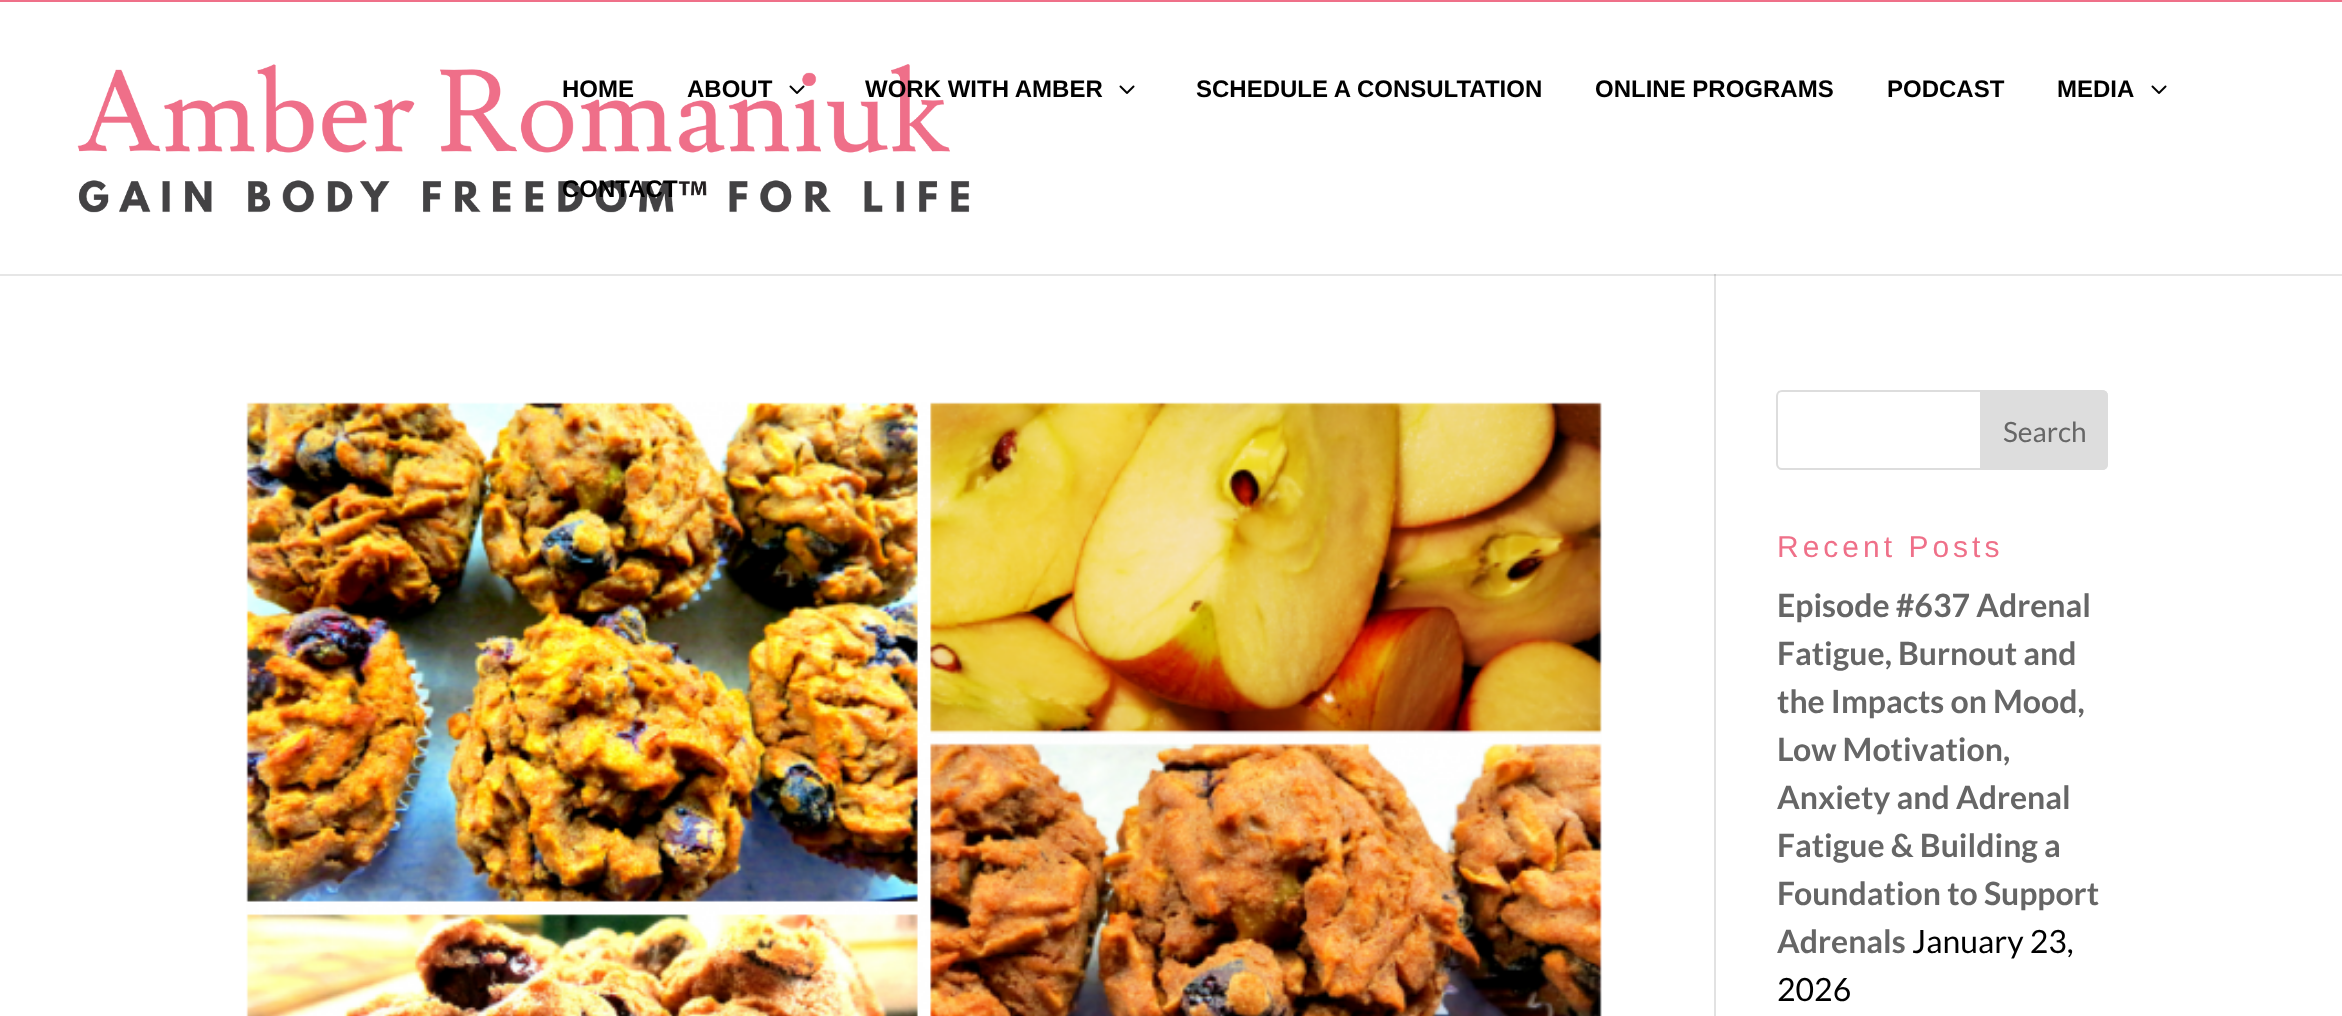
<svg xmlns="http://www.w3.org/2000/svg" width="2342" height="1016">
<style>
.a{font:bold 24px Arimo;fill:#000}
.b{font:28px Lato;fill:#666}
.c{font:30px Liberation Sans;letter-spacing:4px;fill:#ef7089}
.d{font:bold 32px Lato;fill:#666}
.e{font:32px Lato;fill:#000}
</style>
<rect width="100%" height="100%" fill="#fff"/>
<path fill="#e6e6e6" d="M0 274h2342v2H0z"/>
<path fill="#ef7089" d="M0 0h2342v2H0z"/>
<image href="1.png" x="77" y="64" width="893" height="149"/>
<image href="2.png" x="789" y="85" width="16" height="9"/>
<image href="3.png" x="1119" y="85" width="16" height="9"/>
<image href="3.png" x="2151" y="85" width="16" height="9"/>
<path fill="#e2e2e2" d="M1714 274h2v742H1714z"/>
<path fill="#cbcbcb" d="M1714 274h2v2H1714z"/>
<image href="4.png" x="246" y="402" width="1356" height="614"/>
<rect fill="none" stroke="#ddd" stroke-width="2" x="1777" y="391" width="330" height="78" rx="5"/>
<path fill="#ddd" stroke="#ddd" stroke-width="2" d="M1981 391h121c3 0 5 2 5 5v68c0 3-2 5-5 5h-121z"/>
<text class="a" x="562" y="97">HOME</text>
<text class="a" x="687" y="97">ABOUT</text>
<text class="a" x="865" y="97">WORK WITH AMBER</text>
<text class="a" x="1196" y="97">SCHEDULE A CONSULTATION</text>
<text class="a" x="1595" y="97">ONLINE PROGRAMS</text>
<text class="a" x="1887" y="97">PODCAST</text>
<text class="a" x="2057" y="97">MEDIA</text>
<text class="a" x="562" y="197">CONTACT</text>
<text class="b" x="2003" y="442">Search</text>
<text class="c" x="1777" y="557">Recent Posts</text>
<text class="d" x="1777" y="617">Episode #637 Adrenal</text>
<text class="d" x="1777" y="665">Fatigue, Burnout and</text>
<text class="d" x="1777" y="713">the Impacts on Mood,</text>
<text class="d" x="1777" y="761">Low Motivation,</text>
<text class="d" x="1777" y="809">Anxiety and Adrenal</text>
<text class="d" x="1777" y="857">Fatigue &amp; Building a</text>
<text class="d" x="1777" y="905">Foundation to Support</text>
<text class="d" x="1777" y="953">Adrenals</text>
<text class="e" x="1912" y="953">January 23,</text>
<text class="e" x="1777" y="1001">2026</text>
</svg>
